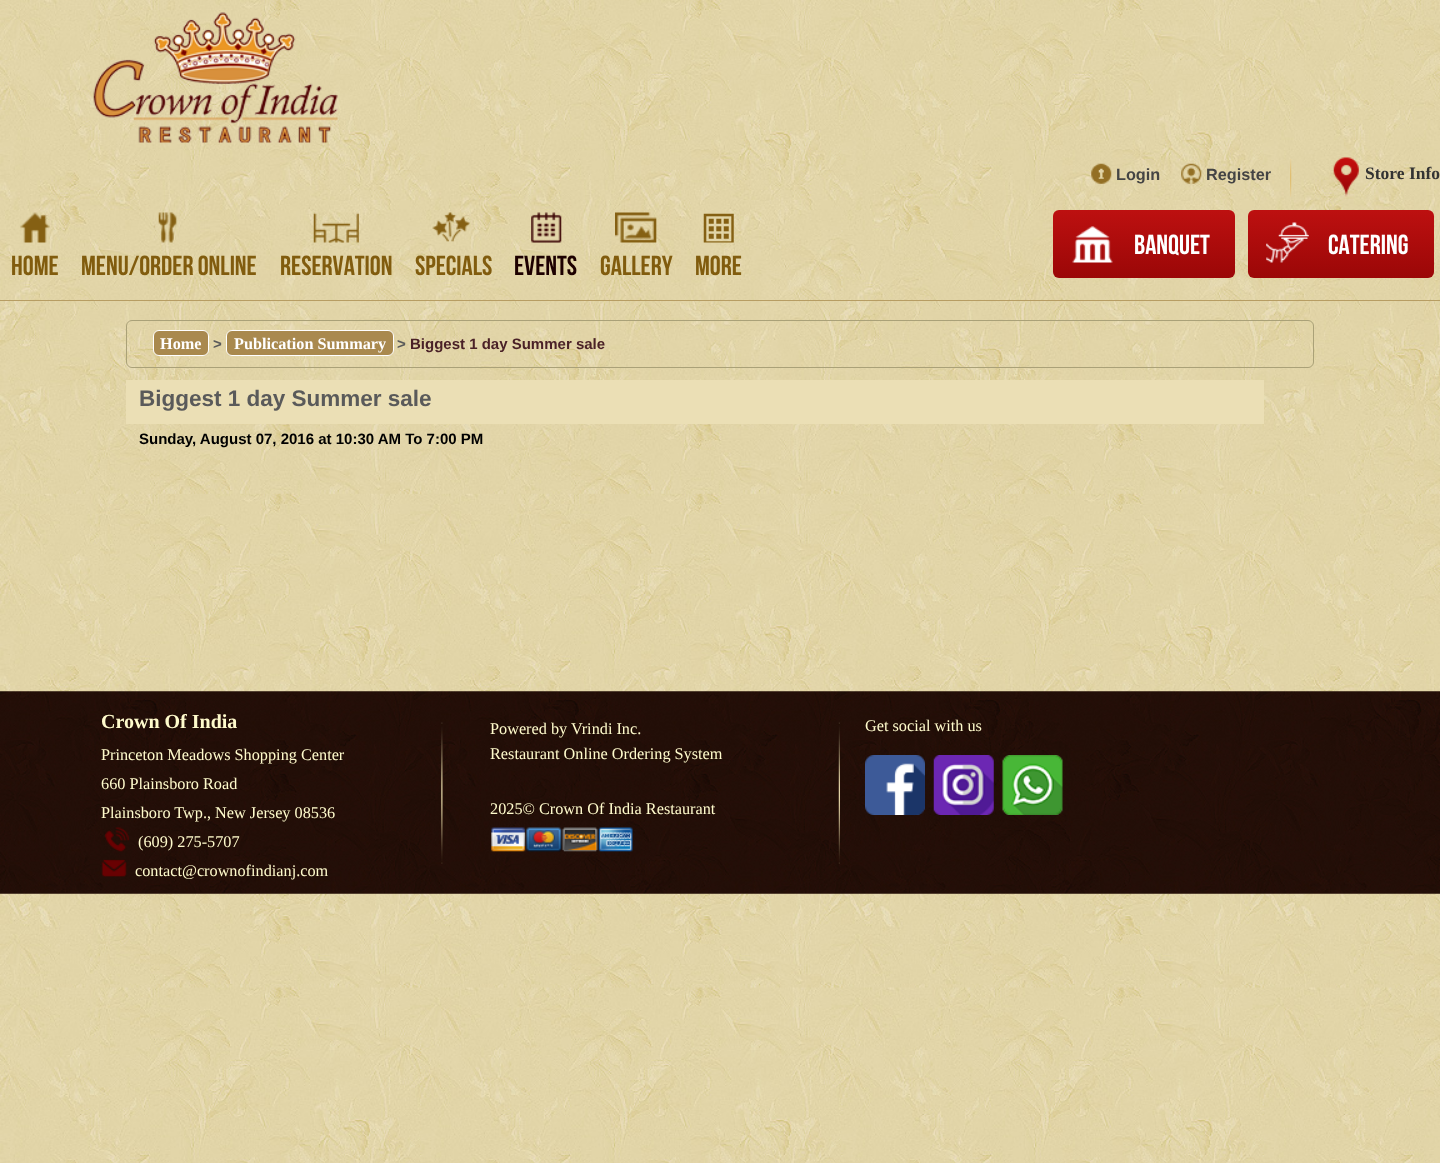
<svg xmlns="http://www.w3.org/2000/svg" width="1440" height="1163">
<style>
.a{font:bold 16.25px Liberation Sans;fill:#444}
.b{font:bold 17.5px Liberation Serif;fill:#333}
.c{font:27.5px Bebas Neue;fill:#fff}
.d{font:27.5px Bebas Neue;fill:#815c0e}
.e{font:27.5px Bebas Neue;fill:#1d0000}
.f{font:bold 16.25px Liberation Serif;fill:#fff}
.g{font:bold 15px Liberation Sans;fill:#5a5a5a}
.h{font:bold 15px Liberation Sans;fill:#4a2127}
.i{font:bold 22.5px Liberation Sans;fill:#5a5a5a}
.j{font:bold 15px Liberation Sans;fill:#000}
.k{font:bold 20px Liberation Serif;fill:#fffbcc}
.l{font:16.25px Liberation Serif;fill:#fffbcc}
</style>
<defs>
<linearGradient id="g1" gradientUnits="userSpaceOnUse" x1="1144" y1="210" x2="1144" y2="278"><stop offset="0" stop-color="#bd1010"/><stop offset="1" stop-color="#9b0707"/></linearGradient>
<linearGradient id="g2" gradientUnits="userSpaceOnUse" x1="1341" y1="210" x2="1341" y2="278"><stop offset="0" stop-color="#bd1010"/><stop offset="1" stop-color="#9b0707"/></linearGradient>
</defs>
<rect width="100%" height="100%" fill="#fff"/>
<image href="1.png" x="0" y="0" width="1440" height="1163"/>
<path fill="#b79d63" d="M0 300h1440v1H0z"/>
<image href="2.png" x="93" y="12" width="245" height="131"/>
<image href="3.png" x="1091" y="163" width="21" height="21"/>
<image href="4.png" x="1181" y="163" width="21" height="21"/>
<image href="5.png" x="1290" y="159" width="2" height="38"/>
<image href="6.png" x="1333" y="157" width="26" height="40"/>
<rect fill="url(#g1)" x="1053" y="210" width="182" height="68" rx="6"/>
<image href="7.png" x="1072" y="226" width="41" height="37"/>
<rect fill="url(#g2)" x="1248" y="210" width="186" height="68" rx="6"/>
<image href="8.png" x="1266" y="222" width="43" height="41"/>
<image href="9.png" x="20" y="212" width="30" height="31"/>
<image href="10.png" x="153" y="212" width="24" height="31"/>
<image href="11.png" x="313" y="212" width="46" height="31"/>
<image href="12.png" x="432" y="212" width="38" height="30"/>
<image href="13.png" x="531" y="212" width="31" height="31"/>
<image href="14.png" x="615" y="212" width="42" height="31"/>
<image href="15.png" x="703" y="213" width="31" height="30"/>
<rect fill="none" stroke="#aaa178" x="126.5" y="320.5" width="1187" height="47" rx="5.5"/>
<rect fill="#a9894e" stroke="#fff" x="153.5" y="330.5" width="55" height="25" rx="5.5"/>
<rect fill="#a9894e" stroke="#fff" x="226.5" y="330.5" width="167" height="25" rx="5.5"/>
<path fill="#ebdfb5" d="M126 380h1138v44H126z"/>
<image href="16.png" x="0" y="691" width="1440" height="203"/>
<image href="17.png" x="105" y="827" width="24" height="25"/>
<image href="18.png" x="101" y="859" width="26" height="18"/>
<image href="19.png" x="441" y="722" width="2" height="142"/>
<image href="20.png" x="491" y="827" width="142" height="25"/>
<image href="21.png" x="838" y="722" width="2" height="142"/>
<image href="22.png" x="865" y="755" width="60" height="60"/>
<image href="23.png" x="933" y="755" width="61" height="60"/>
<image href="24.png" x="1002" y="755" width="61" height="60"/>
<text class="a" x="1116" y="180">Login</text>
<text class="a" x="1206" y="180">Register</text>
<text class="b" x="1365" y="179">Store Info</text>
<text class="c" x="1134" y="254">Banquet</text>
<text class="c" x="1328" y="254">Catering</text>
<text class="d" x="11" y="275">HOME</text>
<text class="d" x="81" y="275">MENU/ORDER ONLINE</text>
<text class="d" x="280" y="275">RESERVATION</text>
<text class="d" x="415" y="275">SPECIALS</text>
<text class="e" x="514" y="275">EVENTS</text>
<text class="d" x="600" y="275">GALLERY</text>
<text class="d" x="695" y="275">MORE</text>
<text class="f" x="160" y="349">Home</text>
<text class="g" x="213" y="349">&gt;</text>
<text class="f" x="234" y="349">Publication Summary</text>
<text class="g" x="397" y="349">&gt;</text>
<text class="h" x="410" y="349">Biggest 1 day Summer sale</text>
<text class="i" x="139" y="406">Biggest 1 day Summer sale</text>
<text class="j" x="139" y="444">Sunday, August 07, 2016 at 10:30 AM To 7:00 PM</text>
<text class="k" x="101" y="728">Crown Of India</text>
<text class="l" x="101" y="760">Princeton Meadows Shopping Center</text>
<text class="l" x="101" y="789">660 Plainsboro Road</text>
<text class="l" x="101" y="818">Plainsboro Twp., New Jersey 08536</text>
<text class="l" x="138" y="847">(609) 275-5707</text>
<text class="l" x="135" y="876">contact@crownofindianj.com</text>
<text class="l" x="490" y="734">Powered by Vrindi Inc.</text>
<text class="l" x="490" y="759">Restaurant Online Ordering System</text>
<text class="l" x="490" y="814">2025© Crown Of India Restaurant</text>
<text class="l" x="865" y="731">Get social with us</text>
</svg>
